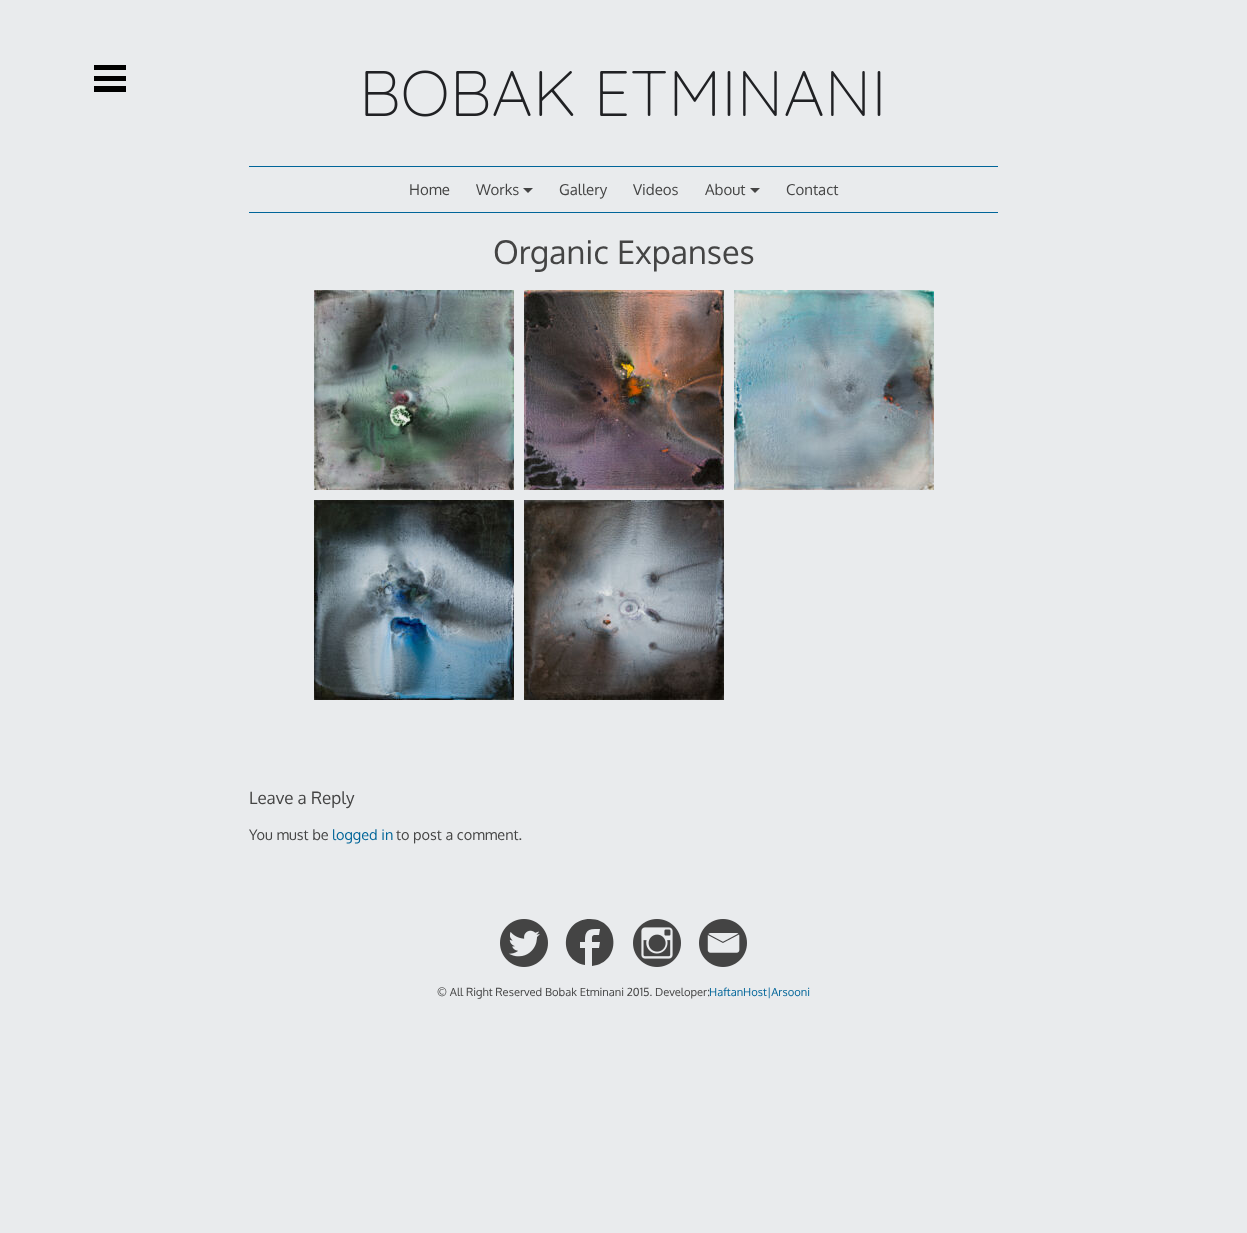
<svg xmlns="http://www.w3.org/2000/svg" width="1247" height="1233">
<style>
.a{font:15px Oxygen;fill:#444}
.b{font:32.5px Oxygen;fill:#444}
.c{font:17px Oxygen;fill:#444}
.d{font:14.5px Oxygen;fill:#444}
.e{font:14.5px Oxygen;fill:#006599}
.f{font:11.2px Oxygen;fill:#444}
.g{font:11.2px Oxygen;fill:#006599}
</style>
<rect width="100%" height="100%" fill="#e9ebed"/>
<path fill="#000" d="M94 65h32v5H94z"/>
<path fill="#000" d="M94 76h32v5H94z"/>
<path fill="#000" d="M94 86h32v6H94z"/>
<path fill="#006599" d="M249 212h749v1H249z"/>
<image href="1.png" x="365" y="70" width="516" height="47"/>
<path fill="#006599" d="M249 166h749v1H249z"/>
<path fill="#444" d="M523 188h10l-5 5z"/>
<path fill="#444" d="M750 188h10l-5 5z"/>
<image href="2.png" x="314" y="290" width="200" height="200"/>
<image href="3.png" x="524" y="290" width="200" height="200"/>
<image href="4.png" x="734" y="290" width="200" height="200"/>
<image href="5.png" x="314" y="500" width="200" height="200"/>
<image href="6.png" x="524" y="500" width="200" height="200"/>
<image href="7.png" x="500" y="919" width="48" height="48"/>
<path fill="#444" fill-rule="evenodd" d="M590 919c30 0 32 44 2 47v-18h7l1-6h-8c0-7-1-7 7-7l1-6h-5c-10 0-10 6-10 13h-5v6h5v17c-28-5-24-46 5-46z"/>
<image href="8.png" x="633" y="919" width="48" height="48"/>
<image href="9.png" x="699" y="919" width="48" height="48"/>
<text class="a" x="409" y="195">Home</text>
<text class="a" x="476" y="195">Works</text>
<text class="a" x="559" y="195">Gallery</text>
<text class="a" x="633" y="195">Videos</text>
<text class="a" x="705" y="195">About</text>
<text class="a" x="786" y="195">Contact</text>
<text class="b" x="493" y="264">Organic Expanses</text>
<text class="c" x="249" y="804">Leave a Reply</text>
<text class="d" x="249" y="840">You must be</text>
<text class="e" x="332" y="840">logged in</text>
<text class="d" x="396" y="840">to post a comment.</text>
<text class="f" x="437" y="996">© All Right Reserved Bobak Etminani 2015. Developer:</text>
<text class="g" x="709" y="996">HaftanHost|Arsooni</text>
</svg>
